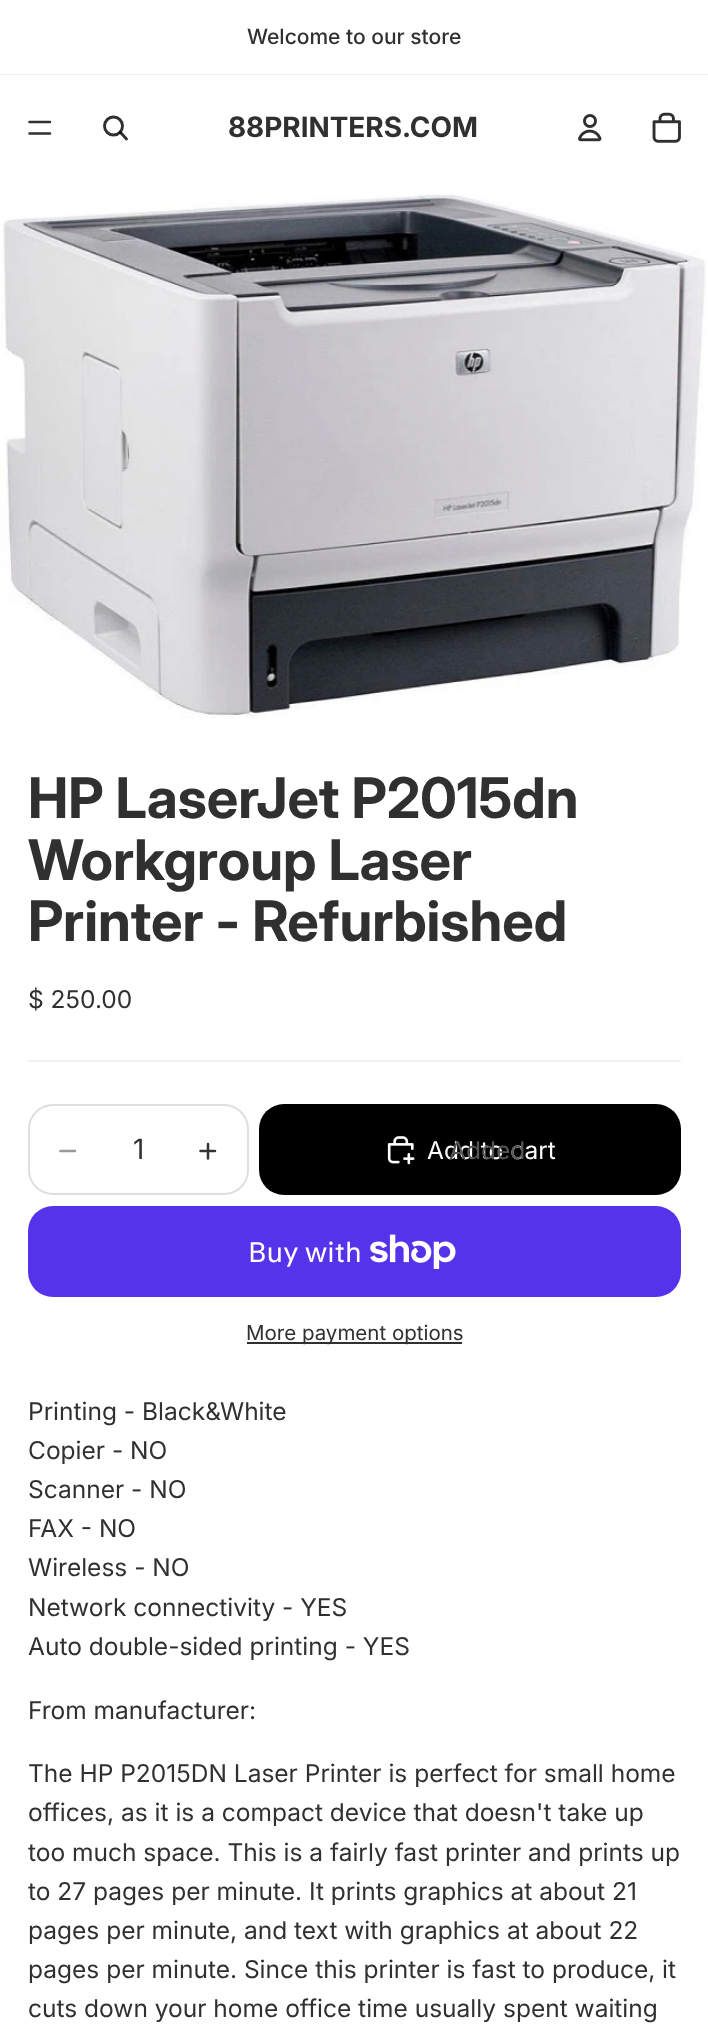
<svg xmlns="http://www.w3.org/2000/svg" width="708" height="2025">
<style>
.a{font:500 21px Inter;fill:#303030}
.b{font:bold 28px 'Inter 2';fill:#303030}
.c{font:bold 56px Inter;fill:#303030}
.d{font:24.5px 'Inter 2';fill:#303030}
.e{font:28px Inter;fill:#303030}
.f{font:24.5px 'Inter 2';fill:#fff}
.g{font:24.5px 'Inter 2';fill:#565656}
.h{font:28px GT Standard;fill:#fff}
.i{font:20.5px 'Inter 2';fill:#303030}
</style>
<rect width="100%" height="100%" fill="#fff"/>
<path fill="#f0f0f0" d="M0 74h708v1H0z"/>
<path fill="none" stroke="#303030" stroke-width="2.5" stroke-linecap="round" d="M29.5 122h20.5m-20.5 11.5h20.5"/>
<circle fill="none" stroke="#303030" stroke-width="2.9" cx="113.5" cy="126" r="9"/>
<path fill="none" stroke="#000000cf" stroke-width="2.9" stroke-linecap="round" stroke-linejoin="round" d="M120.5 132.5l6 6.5"/>
<image href="1.png" x="578" y="114" width="24" height="28"/>
<image href="2.png" x="652" y="112" width="29" height="31"/>
<image href="3.png" x="0" y="194" width="706" height="525"/>
<path fill="#f0f0f0" d="M681 1060.5v1.5l-2-1.5z"/>
<path fill="#0000000f" d="M681 1062h-653v-2h651z"/>
<rect fill="none" stroke="#dfdfdf" stroke-width="2" x="29" y="1105" width="219" height="89" rx="24"/>
<path fill="none" stroke="#999" stroke-width="2.5" stroke-linecap="round" d="M60.5 1151h14.5"/>
<path fill="none" stroke="#333" stroke-width="2.5" stroke-linecap="round" d="M200.5 1151h14.5m-7-7v14.5"/>
<rect fill="#000" x="259" y="1104" width="422" height="91" rx="25"/>
<image href="4.png" x="387" y="1136" width="28" height="29"/>
<rect fill="#5433eb" x="28" y="1206" width="653" height="91" rx="25"/>
<image href="5.png" x="370" y="1234" width="86" height="35"/>
<path fill="#303030" d="M247 1342h215v2H247z"/>
<text class="a" x="247" y="44">Welcome to our store</text>
<text class="b" x="228" y="137">88PRINTERS.COM</text>
<text class="c" x="28" y="818">HP LaserJet P2015dn</text>
<text class="c" x="28" y="880">Workgroup Laser</text>
<text class="c" x="28" y="941">Printer - Refurbished</text>
<text class="d" x="28" y="1008">$ 250.00</text>
<text class="e" x="133" y="1159">1</text>
<text class="f" x="427" y="1159">Add to cart</text>
<text class="g" x="449" y="1159">Added</text>
<text class="h" x="248" y="1262">Buy with</text>
<text class="i" x="246" y="1340">More payment options</text>
<text class="d" x="28" y="1420">Printing - Black&amp;White</text>
<text class="d" x="28" y="1459">Copier - NO</text>
<text class="d" x="28" y="1498">Scanner - NO</text>
<text class="d" x="28" y="1537">FAX - NO</text>
<text class="d" x="28" y="1576">Wireless - NO</text>
<text class="d" x="28" y="1616">Network connectivity - YES</text>
<text class="d" x="28" y="1655">Auto double-sided printing - YES</text>
<text class="d" x="28" y="1719">From manufacturer:</text>
<text class="d" x="28" y="1782">The HP P2015DN Laser Printer is perfect for small home</text>
<text class="d" x="28" y="1821">offices, as it is a compact device that doesn't take up</text>
<text class="d" x="28" y="1861">too much space. This is a fairly fast printer and prints up</text>
<text class="d" x="28" y="1900">to 27 pages per minute. It prints graphics at about 21</text>
<text class="d" x="28" y="1939">pages per minute, and text with graphics at about 22</text>
<text class="d" x="28" y="1978">pages per minute. Since this printer is fast to produce, it</text>
<text class="d" x="28" y="2017">cuts down your home office time usually spent waiting</text>
</svg>
